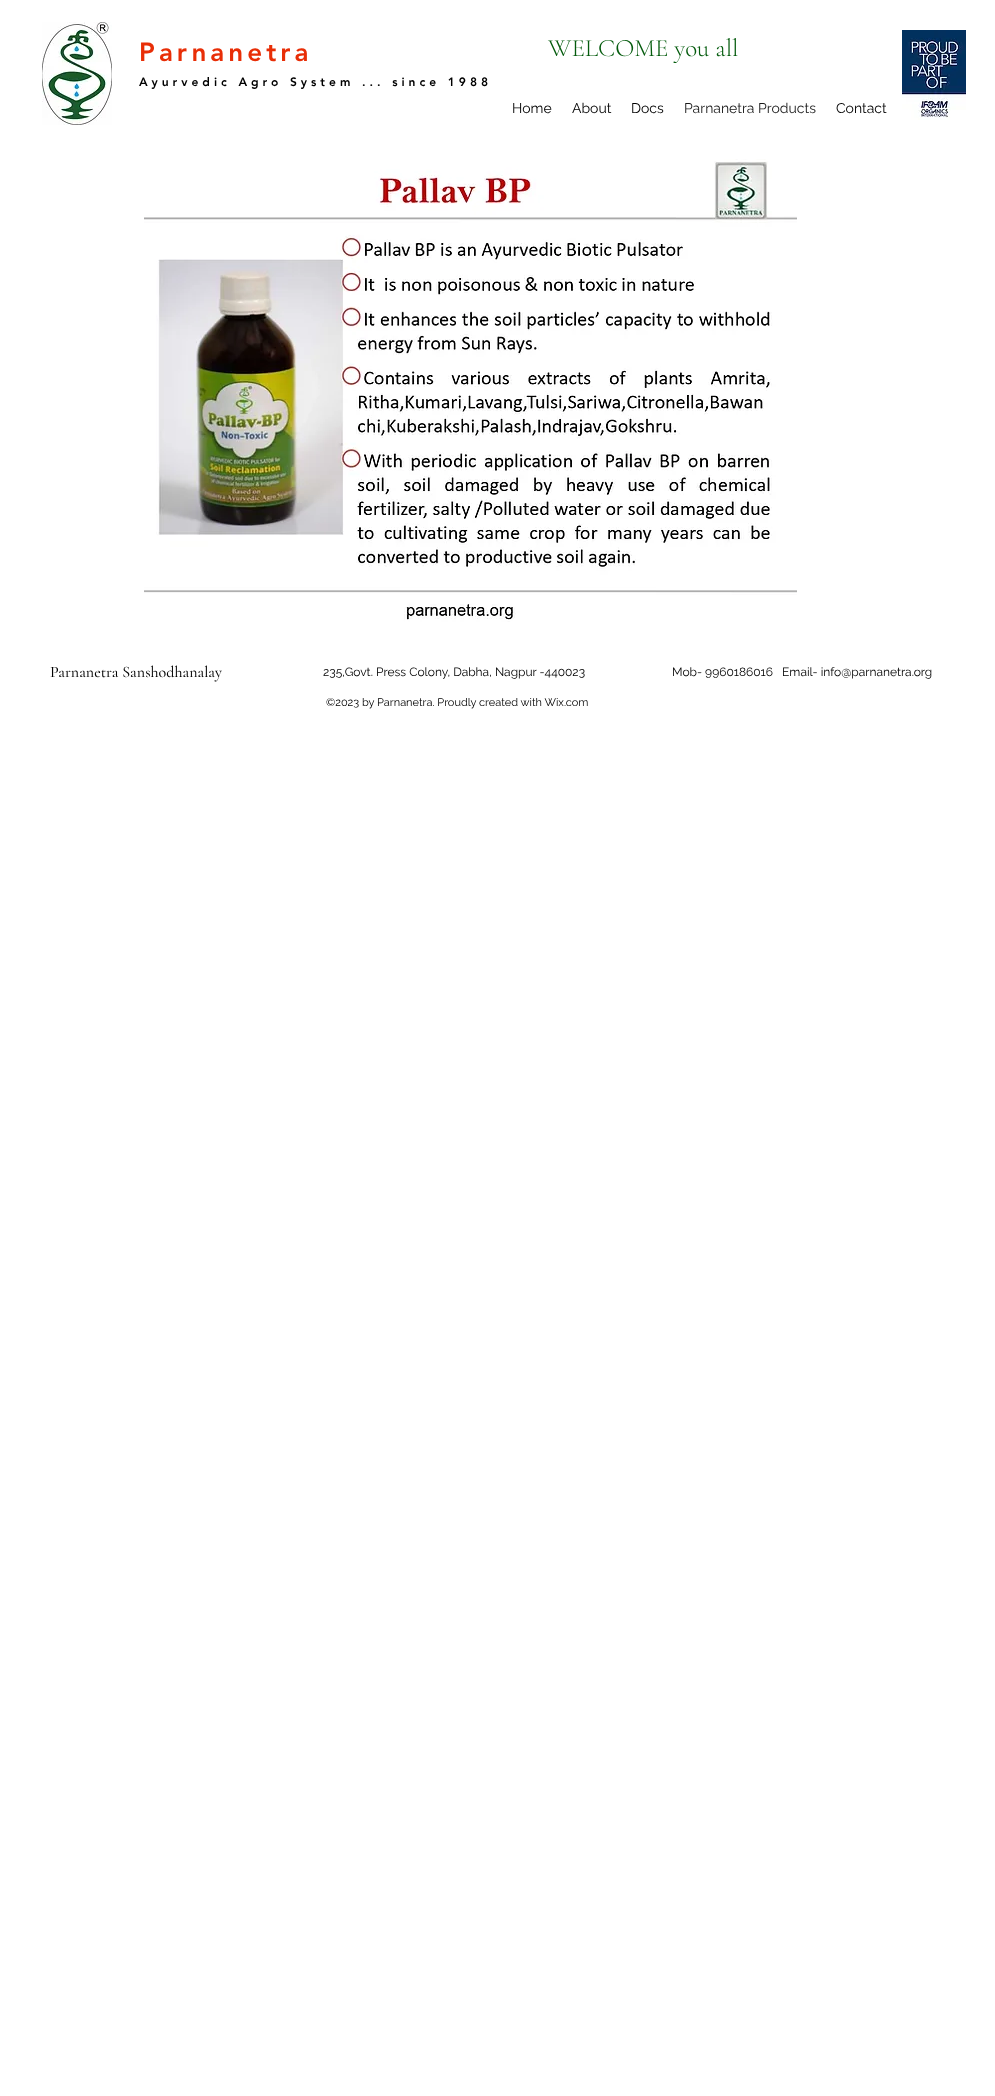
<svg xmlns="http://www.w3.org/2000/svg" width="995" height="2096">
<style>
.a{font:900 26px 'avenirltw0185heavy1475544';letter-spacing:4px;fill:#e82e07}
.b{font:900 12px 'avenirltw0185heavy1475544';letter-spacing:4px;fill:#000}
.c{font:300 25px Cormorant Garamond;fill:#045b0d}
.d{font:14px Raleway;fill:#000}
.e{font:14px Raleway;fill:#191919}
.f{font:500 16px Cormorant Garamond;fill:#000}
.g{font:12px Raleway;fill:#000}
.h{font:11px Raleway;fill:#000}
</style>
<rect width="100%" height="100%" fill="#fff"/>
<image href="1.png" x="42" y="22" width="70" height="103"/>
<image href="2.png" x="902" y="30" width="64" height="90"/>
<image href="3.png" x="144" y="159" width="653" height="463"/>
<text class="a" x="139" y="61">Parnanetra</text>
<text class="b" x="139" y="86">Ayurvedic Agro System ... since 1988</text>
<text class="c" x="548" y="56">WELCOME you all</text>
<text class="d" x="512" y="113">Home</text>
<text class="d" x="572" y="113">About</text>
<text class="d" x="631" y="113">Docs</text>
<text class="e" x="684" y="113">Parnanetra Products</text>
<text class="d" x="836" y="113">Contact</text>
<text class="f" x="50" y="677">Parnanetra Sanshodhanalay</text>
<text class="g" x="323" y="676">235,Govt. Press Colony, Dabha, Nagpur -440023</text>
<text class="g" xml:space="preserve" x="672" y="676">Mob- 9960186016   Email- info@parnanetra.org</text>
<text class="h" x="326" y="706">©2023 by Parnanetra. Proudly created with Wix.com</text>
</svg>
